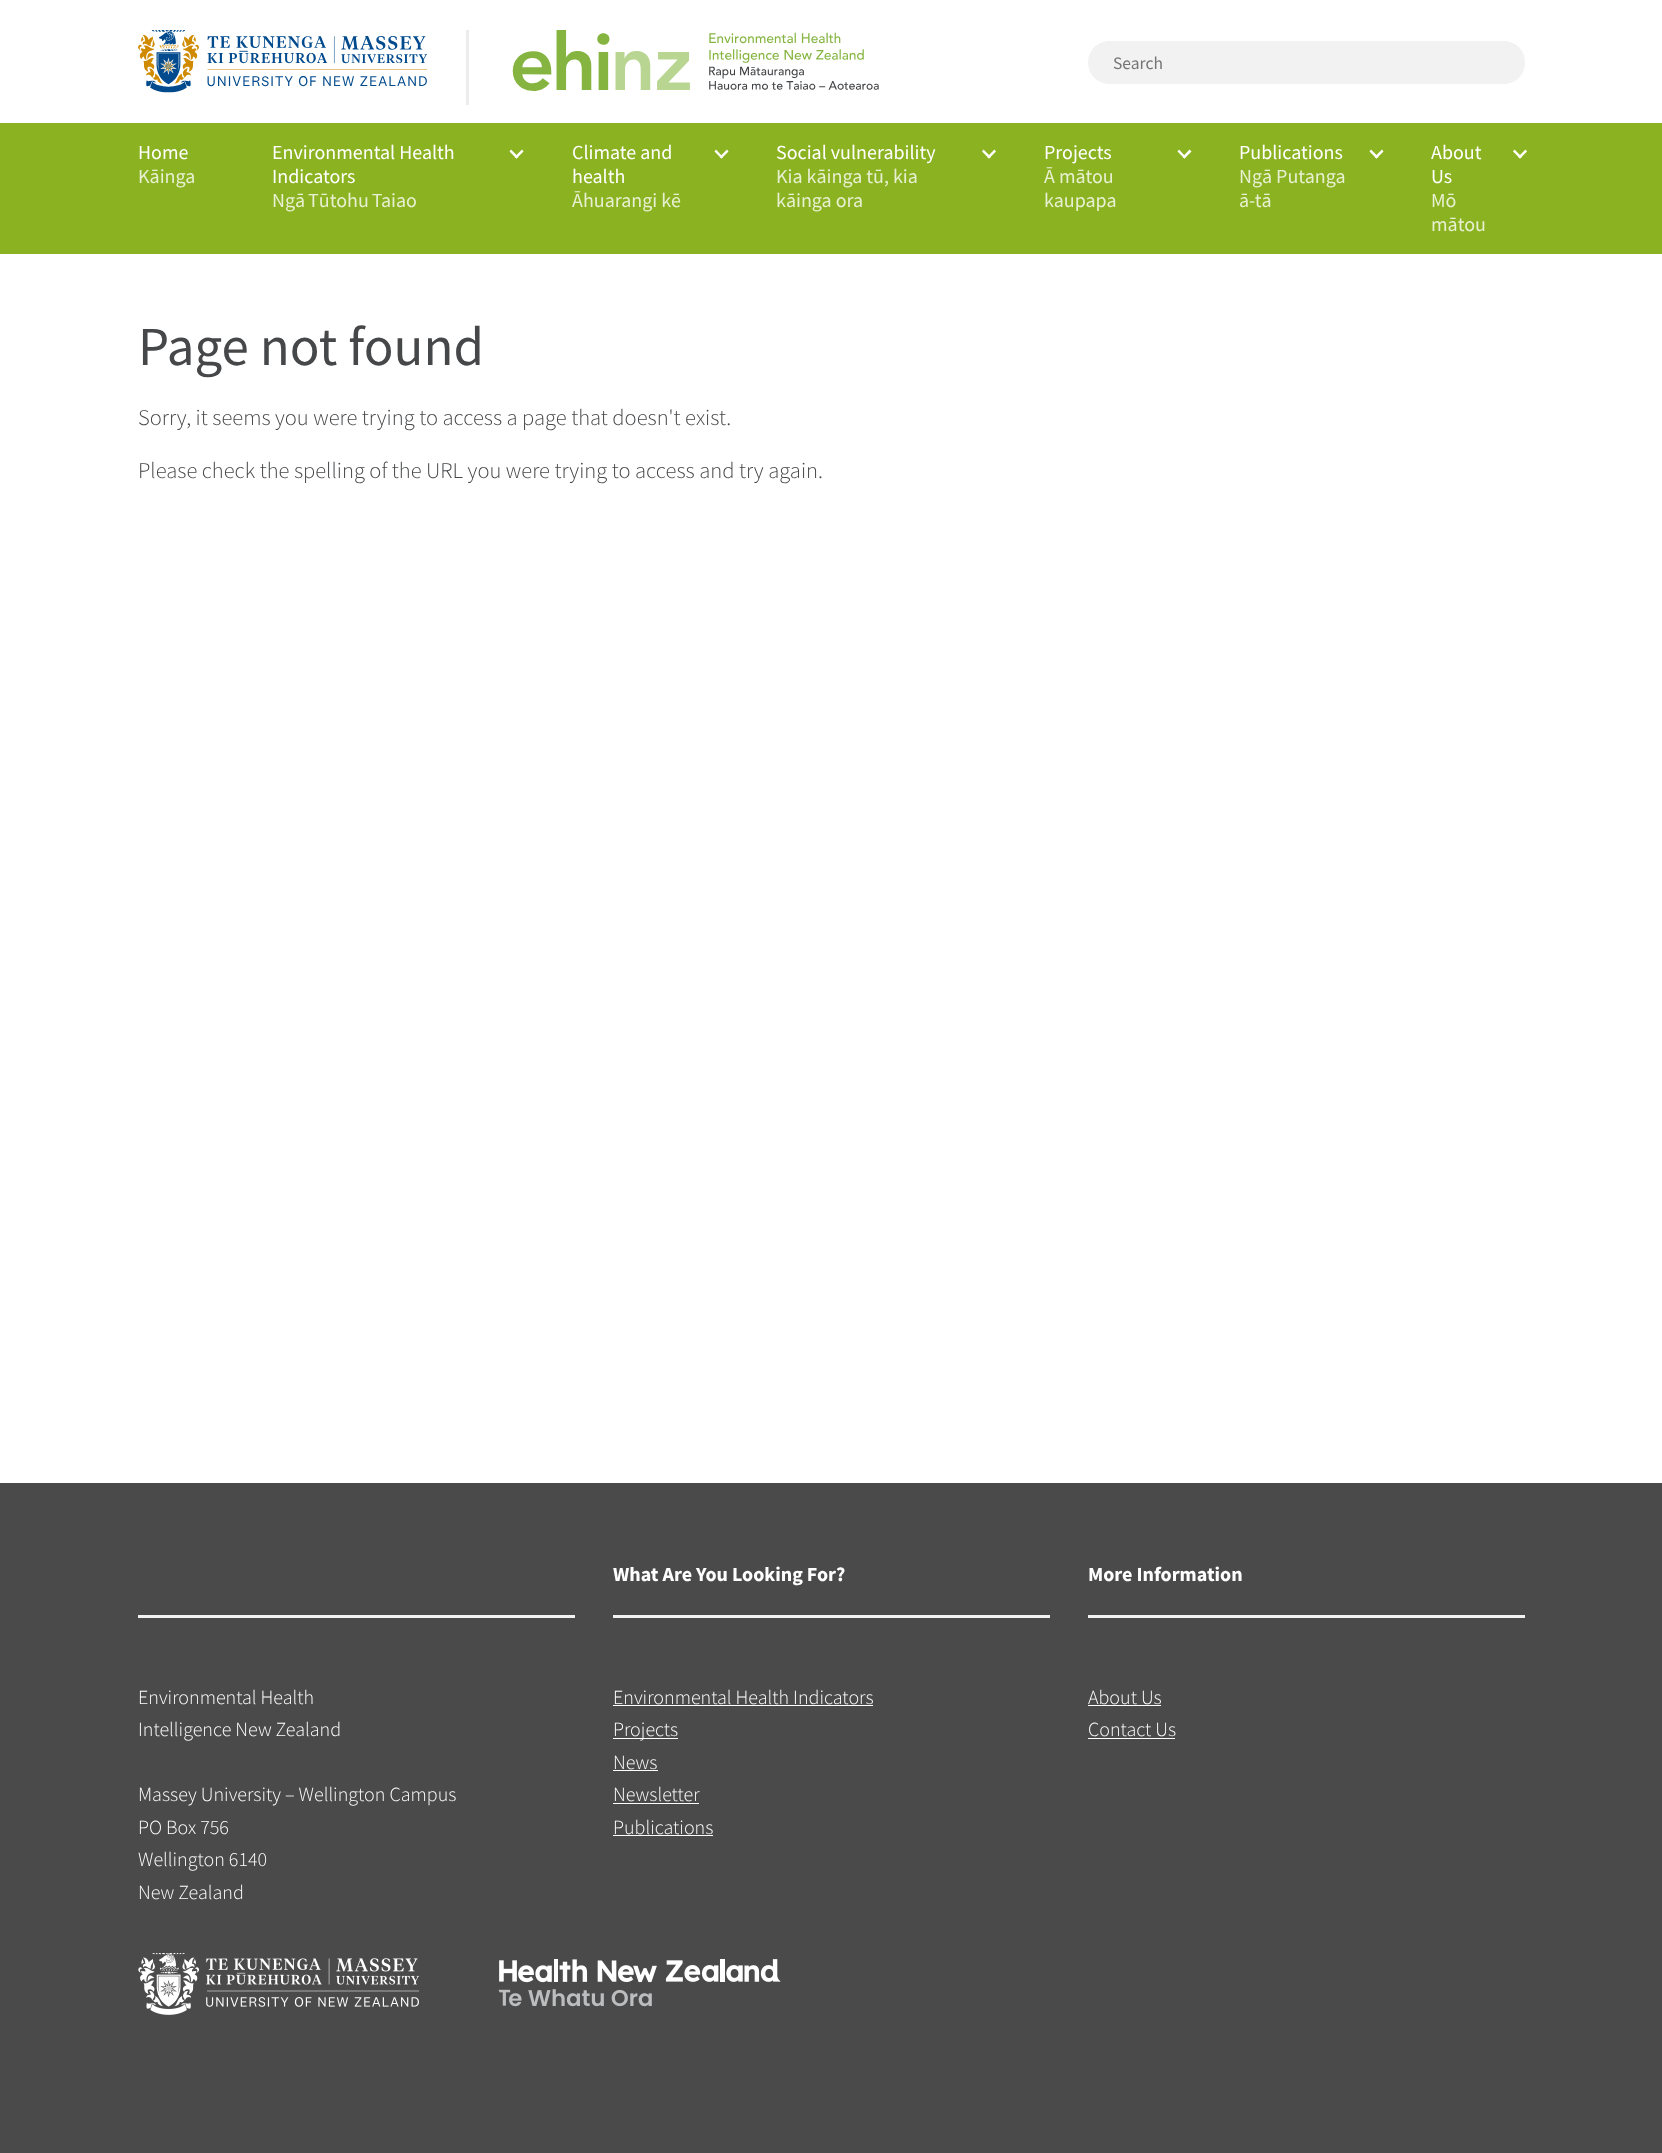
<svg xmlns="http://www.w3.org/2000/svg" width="1662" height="2153">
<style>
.a{font:17.5px Source Sans Pro;fill:#757575}
.b{font:20px Source Sans Pro;fill:#fff}
.c{font:20px Source Sans Pro;fill:#e8f0d2}
.d{font:55px Source Sans Pro;fill:#464749}
.e{font:300 22.5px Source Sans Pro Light;fill:#464749}
.f{font:bold 20px Source Sans Pro;fill:#fff}
.g{font:300 20px Source Sans Pro Light;fill:#fff}
</style>
<rect width="100%" height="100%" fill="#fff"/>
<image href="1.png" x="138" y="30" width="289" height="63"/>
<path fill="#ececec" d="M466 30h3v75H466z"/>
<image href="2.png" x="512" y="30" width="367" height="61"/>
<path fill="#f2f2f2" d="M1109.5 41h373.5v43h-373.5c-12 0-21.5-9.5-21.5-21.5c0-12 9.5-21.5 21.5-21.5z"/>
<path fill="#f2f2f2" d="M1483 41h21c11.5 0 21 9.5 21 21v1c0 11.5-9.5 21-21 21h-21z"/>
<path fill="#8bb220" d="M0 123h1662v131H0z"/>
<path fill="#fff" d="M523.5 151.5l-7 7l-2-1.5l7.5-7.5z"/>
<path fill="#fff" d="M518.5 157l-2 1.5l-7-7l1.5-2z"/>
<path fill="#fff" d="M728.5 151.5l-7 7l-2-1.5l7.5-7.5z"/>
<path fill="#fff" d="M723 157l-1.5 1.5l-7-7l1.5-2z"/>
<path fill="#fff" d="M996 151.5l-7 7l-2-1.5l7.5-7.5z"/>
<path fill="#fff" d="M991 157l-2 1.5l-7-7l1.5-2z"/>
<path fill="#fff" d="M1191.5 151.5l-7 7l-2-1.5l7-7.5z"/>
<path fill="#fff" d="M1186 157l-1.5 1.5l-7-7l1.5-2z"/>
<path fill="#fff" d="M1383.5 151.5l-7 7l-2-1.5l7.5-7.5z"/>
<path fill="#fff" d="M1378.5 157l-2 1.5l-7-7l1.5-2z"/>
<path fill="#fff" d="M1527 151.5l-7 7l-2-1.5l7.5-7.5z"/>
<path fill="#fff" d="M1522 157l-2 1.5l-7-7l1.5-2z"/>
<path fill="#4a4a4a" d="M0 1483h1662v670H0z"/>
<path fill="#f2f2f2" d="M613 1615h437v3H613z"/>
<path fill="#fff" d="M613 1705h260v1H613z"/>
<path fill="#fff" d="M613 1738h65v1H613z"/>
<path fill="#fff" d="M613 1770h45v1H613z"/>
<path fill="#fff" d="M613 1803h86v1H613z"/>
<path fill="#fff" d="M613 1835h100v1H613z"/>
<path fill="#f2f2f2" d="M1088 1615h437v3H1088z"/>
<path fill="#fff" d="M1088 1705h73v1H1088z"/>
<path fill="#fff" d="M1088 1738h87v1H1088z"/>
<path fill="#f2f2f2" d="M138 1615h437v3H138z"/>
<image href="3.png" x="138" y="1953" width="281" height="62"/>
<image href="4.png" x="498" y="1959" width="283" height="48"/>
<text class="a" x="1113" y="69">Search</text>
<text class="b" x="138" y="159">Home</text>
<text class="c" x="138" y="183">Kāinga</text>
<text class="b" x="272" y="159">Environmental Health</text>
<text class="b" x="272" y="183">Indicators</text>
<text class="c" x="272" y="207" word-spacing="-1">Ngā Tūtohu Taiao</text>
<text class="b" x="572" y="159">Climate and</text>
<text class="b" x="572" y="183">health</text>
<text class="c" x="572" y="207">Āhuarangi kē</text>
<text class="b" x="776" y="159">Social vulnerability</text>
<text class="c" x="776" y="183">Kia kāinga tū, kia</text>
<text class="c" x="776" y="207">kāinga ora</text>
<text class="b" x="1044" y="159">Projects</text>
<text class="c" x="1044" y="183">Ā mātou</text>
<text class="c" x="1044" y="207">kaupapa</text>
<text class="b" x="1239" y="159">Publications</text>
<text class="c" x="1239" y="183">Ngā Putanga</text>
<text class="c" x="1239" y="207">ā-tā</text>
<text class="b" x="1431" y="159">About</text>
<text class="b" x="1431" y="183">Us</text>
<text class="c" x="1431" y="207">Mō</text>
<text class="c" x="1431" y="231">mātou</text>
<text class="d" x="138" y="365">Page not found</text>
<text class="e" x="138" y="425">Sorry, it seems you were trying to access a page that doesn't exist.</text>
<text class="e" x="138" y="478">Please check the spelling of the URL you were trying to access and try again.</text>
<text class="f" x="613" y="1581">What Are You Looking For?</text>
<text class="g" x="613" y="1704">Environmental Health Indicators</text>
<text class="g" x="613" y="1736">Projects</text>
<text class="g" x="613" y="1769">News</text>
<text class="g" x="613" y="1801">Newsletter</text>
<text class="g" x="613" y="1834">Publications</text>
<text class="f" x="1088" y="1581">More Information</text>
<text class="g" x="1088" y="1704">About Us</text>
<text class="g" x="1088" y="1736">Contact Us</text>
<text class="g" x="138" y="1704">Environmental Health</text>
<text class="g" x="138" y="1736">Intelligence New Zealand</text>
<text class="g" x="138" y="1801">Massey University – Wellington Campus</text>
<text class="g" x="138" y="1834">PO Box 756</text>
<text class="g" x="138" y="1866">Wellington 6140</text>
<text class="g" x="138" y="1899">New Zealand</text>
</svg>
